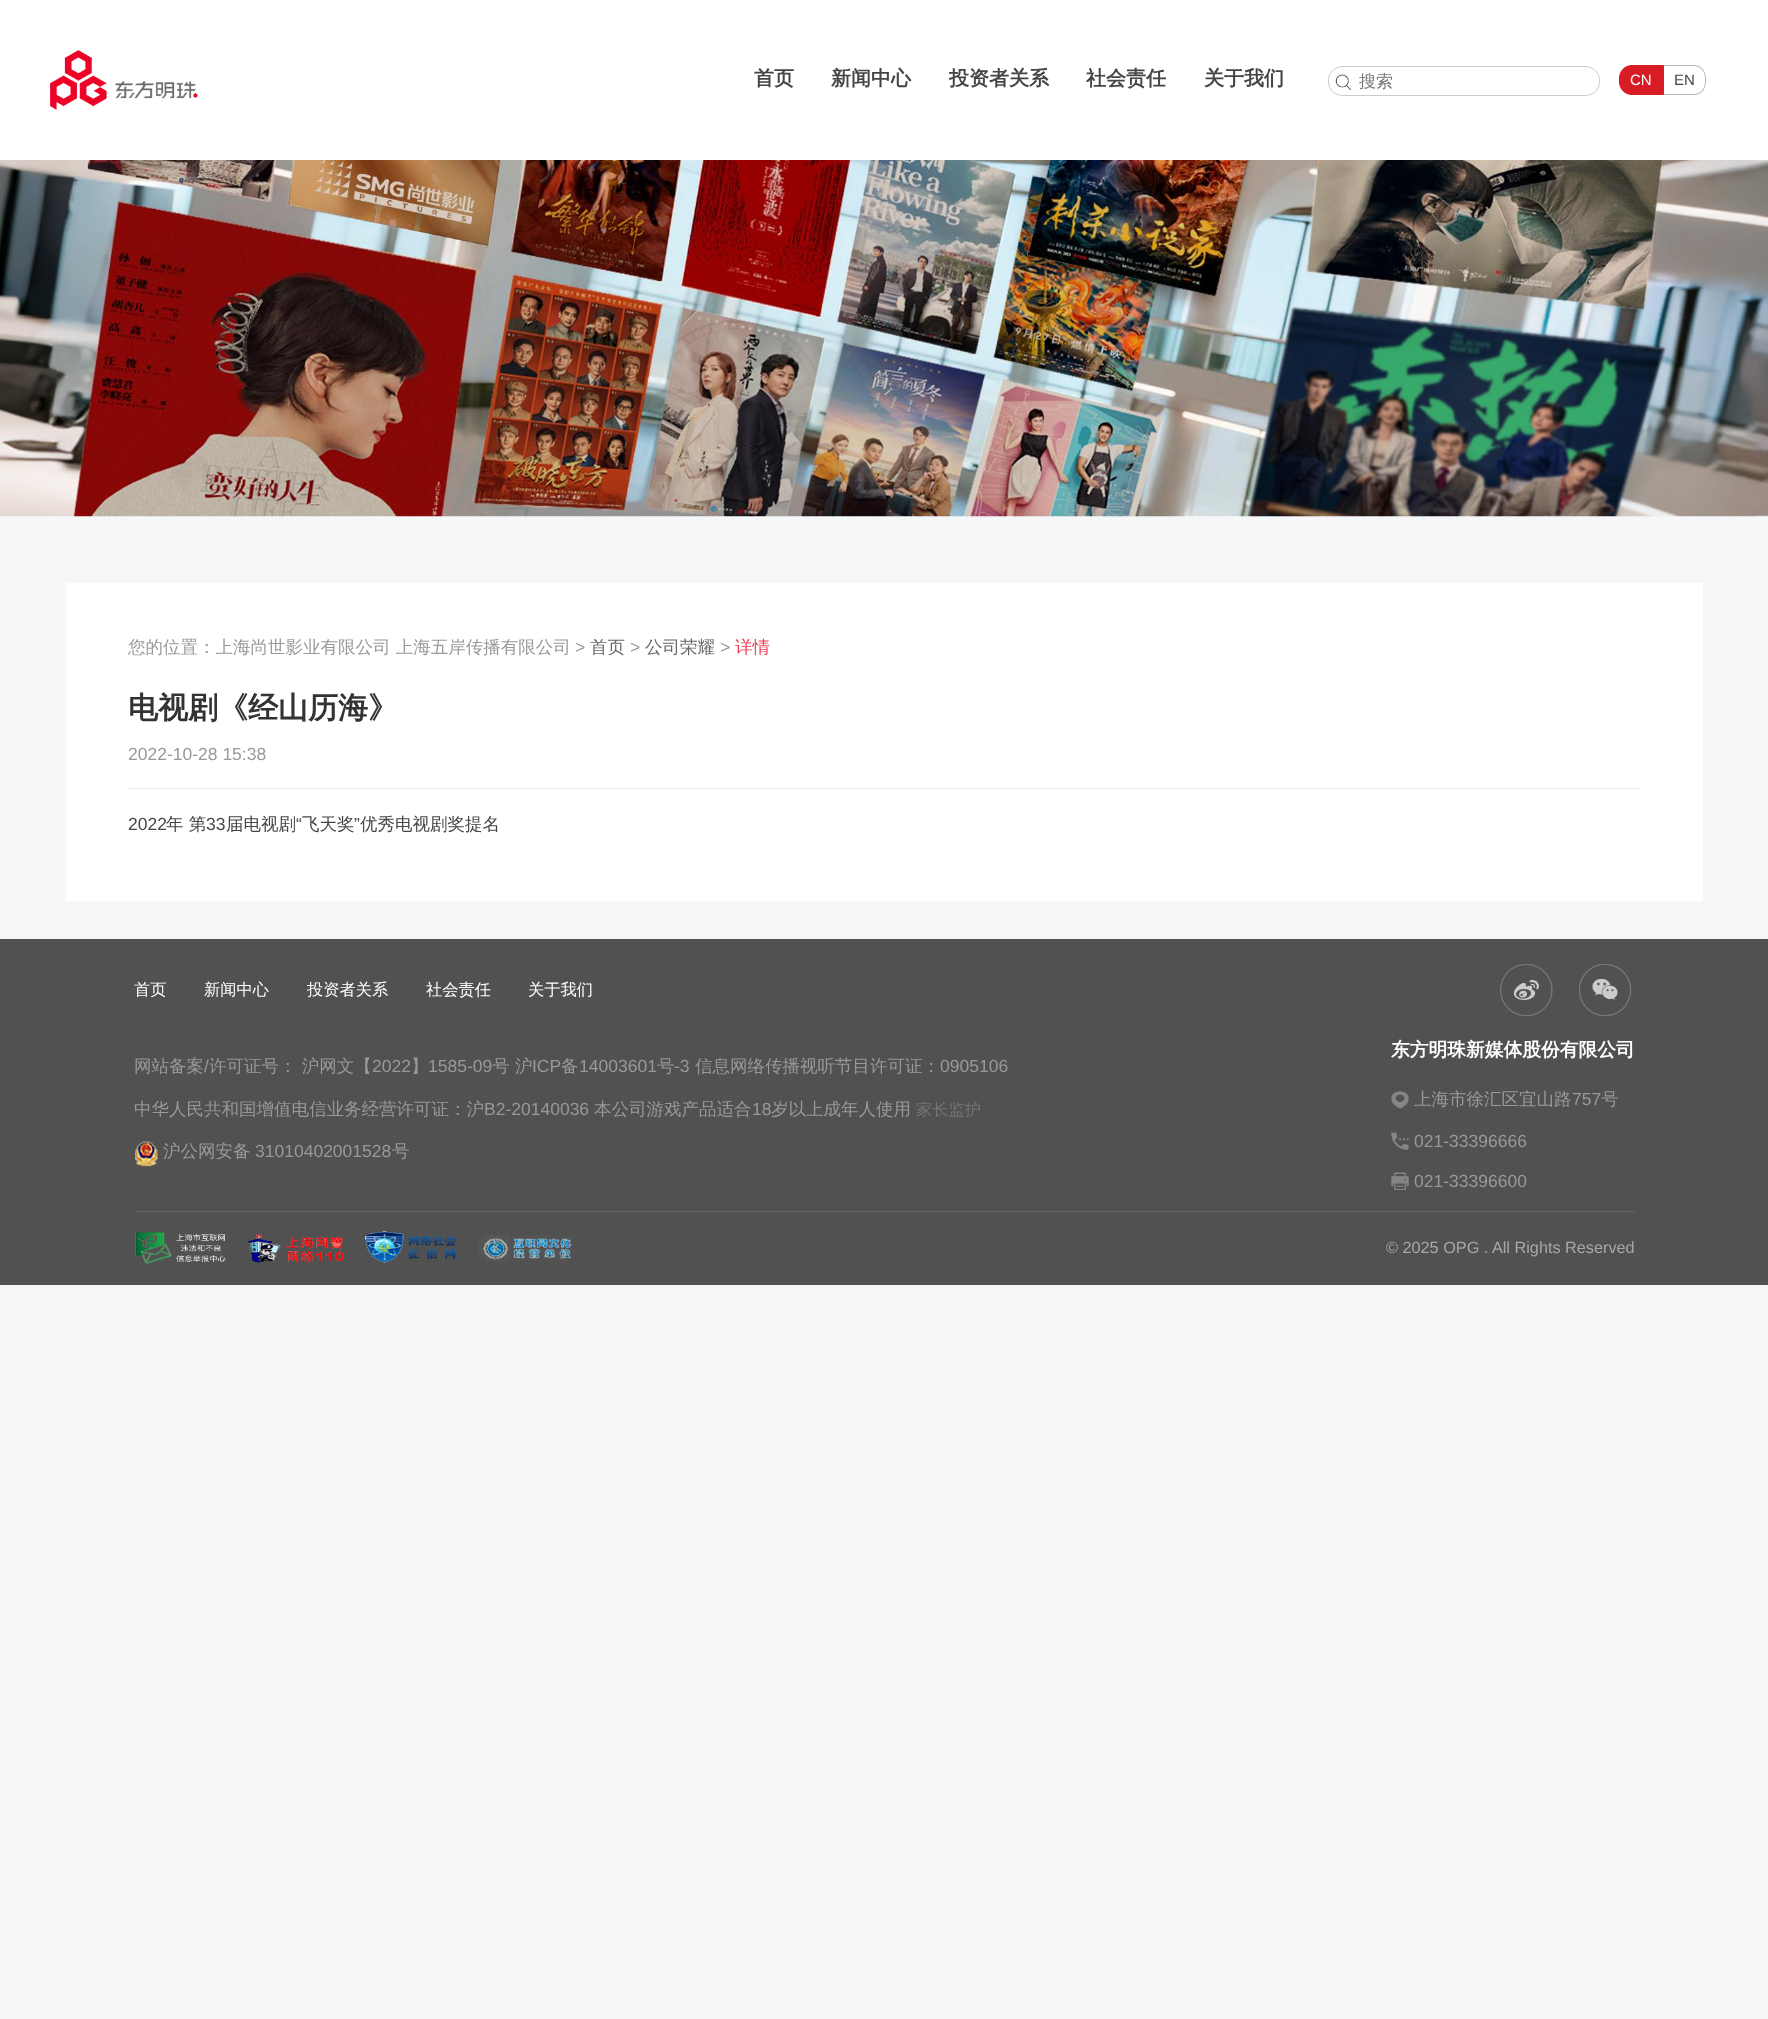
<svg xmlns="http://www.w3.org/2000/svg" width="1768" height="2019">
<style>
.a{font:bold 20px WenQuanYi Zen Hei;fill:#454545}
.b{font:500 17px WenQuanYi Zen Hei;fill:#757575}
.c{font:15px Liberation Sans;fill:#fff}
.d{font:15px Liberation Sans;fill:#454545}
.e{font:500 17.5px WenQuanYi Zen Hei;fill:#999}
.f{font:17.5px Liberation Sans;fill:#999}
.g{font:500 17.5px WenQuanYi Zen Hei;fill:#666}
.h{font:500 17.5px WenQuanYi Zen Hei;fill:#f13a50}
.i{font:bold 30px WenQuanYi Zen Hei;fill:#333}
.j{font:17.5px Liberation Sans;fill:#454545}
.k{font:500 17.5px WenQuanYi Zen Hei;fill:#454545}
.l{font:500 16.25px WenQuanYi Zen Hei;fill:#fff}
.m{font:500 16.25px WenQuanYi Zen Hei;fill:#757575}
.n{font:bold 18.75px WenQuanYi Zen Hei;fill:#fff}
.o{font:16.25px Liberation Sans;fill:#a8a8a8}
</style>
<rect width="100%" height="100%" fill="#f6f7f8"/>
<path fill="#fff" d="M0 0h1768v160H0z"/>
<image href="1.png" x="50" y="50" width="148" height="60"/>
<image href="2.png" x="1335" y="74" width="17" height="16"/>
<rect fill="none" stroke="#ccc" x="1328.5" y="66.5" width="271" height="29" rx="13.5"/>
<path fill="#d81c25" stroke="#d81c25" d="M1632 65.5h31.5v29h-31.5c-7 0-12.5-5.5-12.5-12.5v-4c0-7 5.5-12.5 12.5-12.5z"/>
<path fill="#bcbcbc" fill-rule="evenodd" d="M1664 65h30c7 0 12 6 12 13v4c0 7-5 13-12 13h-30zm0 1h30c6 0 11 5 11 12v4c0 7-5 12-11 12h-30z"/>
<image href="3.png" x="0" y="160" width="1768" height="357"/>
<path fill="#fff" d="M66 583h1637v318H66z"/>
<path fill="#ececec" d="M128 788h1513v1H128z"/>
<path fill="#515151" d="M0 939h1768v346H0z"/>
<image href="4.png" x="1500" y="964" width="53" height="53"/>
<image href="5.png" x="1579" y="964" width="53" height="53"/>
<path fill="#666" d="M135 1211h1500v1H135z"/>
<image href="6.png" x="135" y="1141" width="23" height="26"/>
<image href="7.png" x="1391" y="1091" width="18" height="18"/>
<image href="8.png" x="1391" y="1132" width="18" height="18"/>
<image href="9.png" x="1391" y="1172" width="18" height="18"/>
<image href="10.png" x="135" y="1232" width="91" height="32"/>
<image href="11.png" x="247" y="1234" width="97" height="29"/>
<image href="12.png" x="365" y="1231" width="92" height="32"/>
<image href="13.png" x="478" y="1235" width="94" height="27"/>
<text class="a" x="754" y="85">首页</text>
<text class="a" x="831" y="85">新闻中心</text>
<text class="a" x="949" y="85">投资者关系</text>
<text class="a" x="1086" y="85">社会责任</text>
<text class="a" x="1204" y="85">关于我们</text>
<text class="b" x="1359" y="87">搜索</text>
<text class="c" x="1630" y="85">CN</text>
<text class="d" x="1674" y="85">EN</text>
<text class="e" x="128" y="653">您的位置：上海尚世影业有限公司 上海五岸传播有限公司</text>
<text class="f" x="575" y="653">&gt;</text>
<text class="g" x="590" y="653">首页</text>
<text class="f" x="630" y="653">&gt;</text>
<text class="g" x="645" y="653">公司荣耀</text>
<text class="f" x="720" y="653">&gt;</text>
<text class="h" x="735" y="653">详情</text>
<text class="i" x="128" y="718">电视剧《经山历海》</text>
<text class="f" x="128" y="760">2022-10-28 15:38</text>
<text class="j" x="128" y="830">2022</text>
<text class="k" x="166" y="830">年 第</text>
<text class="j" x="206" y="830">33</text>
<text class="k" x="226" y="830">届电视剧</text>
<text class="j" x="296" y="830">“</text>
<text class="k" x="302" y="830">飞天奖</text>
<text class="j" x="354" y="830">”</text>
<text class="k" x="360" y="830">优秀电视剧奖提名</text>
<text class="l" x="134" y="995">首页</text>
<text class="l" x="204" y="995">新闻中心</text>
<text class="l" x="307" y="995">投资者关系</text>
<text class="l" x="426" y="995">社会责任</text>
<text class="l" x="528" y="995">关于我们</text>
<text class="e" x="134" y="1072">网站备案</text>
<text class="f" x="204" y="1072">/</text>
<text class="e" x="209" y="1072">许可证号： 沪网文【</text>
<text class="f" x="372" y="1072">2022</text>
<text class="e" x="411" y="1072">】</text>
<text class="f" x="428" y="1072">1585-09</text>
<text class="e" x="492" y="1072">号</text>
<text class="e" x="515" y="1072">沪</text>
<text class="f" x="532" y="1072">ICP</text>
<text class="e" x="561" y="1072">备</text>
<text class="f" x="579" y="1072">14003601</text>
<text class="e" x="657" y="1072">号</text>
<text class="f" x="674" y="1072">-3</text>
<text class="e" x="695" y="1072">信息网络传播视听节目许可证：</text>
<text class="f" x="940" y="1072">0905106</text>
<text class="e" x="134" y="1115">中华人民共和国增值电信业务经营许可证：沪</text>
<text class="f" x="484" y="1115">B2-20140036</text>
<text class="e" x="594" y="1115">本公司游戏产品适合</text>
<text class="f" x="752" y="1115">18</text>
<text class="e" x="771" y="1115">岁以上成年人使用</text>
<text class="m" x="916" y="1115">家长监护</text>
<text class="e" x="163" y="1157">沪公网安备</text>
<text class="f" x="255" y="1157">31010402001528</text>
<text class="e" x="392" y="1157">号</text>
<text class="n" x="1391" y="1056">东方明珠新媒体股份有限公司</text>
<text class="e" x="1414" y="1105">上海市徐汇区宜山路</text>
<text class="f" x="1572" y="1105">757</text>
<text class="e" x="1601" y="1105">号</text>
<text class="f" x="1414" y="1147">021-33396666</text>
<text class="f" x="1414" y="1187">021-33396600</text>
<text class="o" x="1386" y="1253">© 2025 OPG . All Rights Reserved</text>
</svg>
